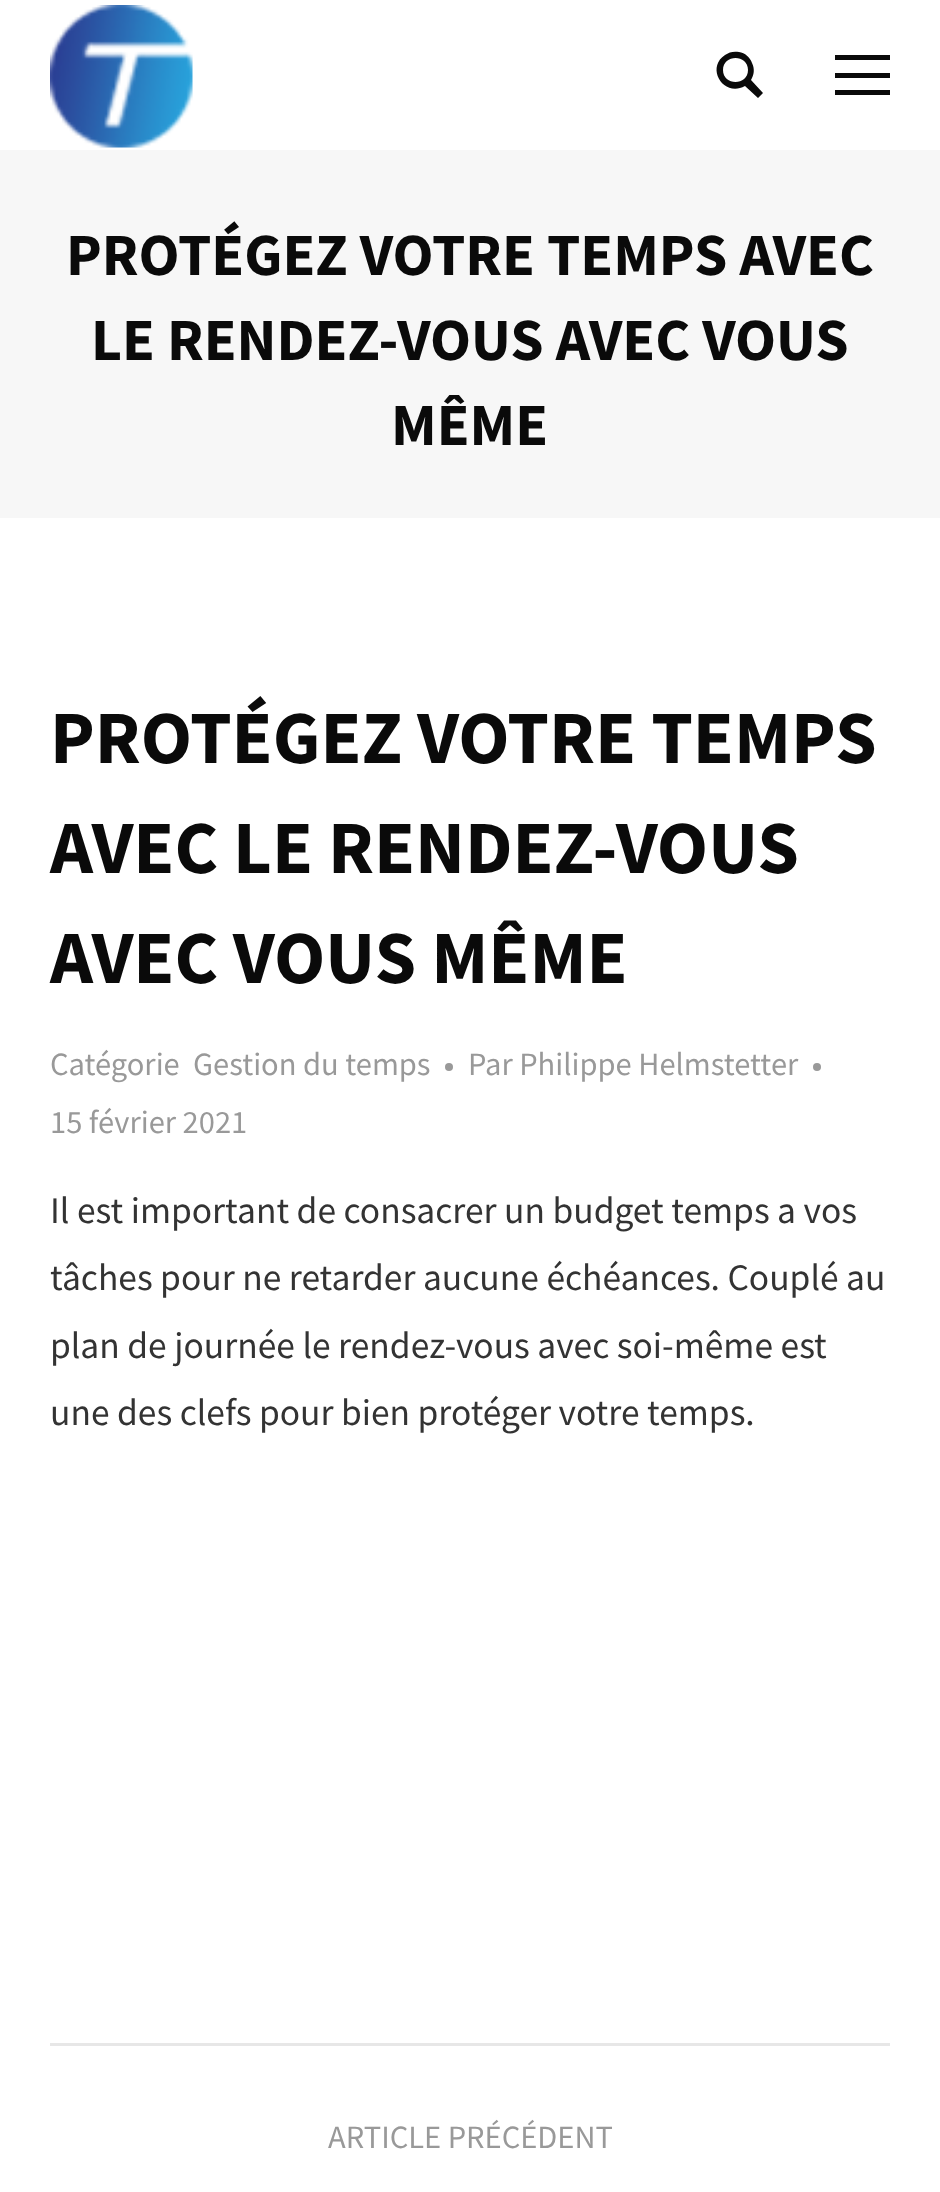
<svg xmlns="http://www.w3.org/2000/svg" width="940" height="2192">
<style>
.a{font:bold 60px Source Sans Pro;fill:#0a0a0a}
.b{font:bold 75px Source Sans Pro;fill:#0a0a0a}
.c{font:32.5px Source Sans Pro;fill:#999}
.d{font:37.5px Source Sans Pro;fill:#333}
</style>
<rect width="100%" height="100%" fill="#fff"/>
<image href="1.png" x="50" y="5" width="143" height="143"/>
<path fill="#0a0a0a" d="M763 93l-12-13c3-5 4-11 1-17c-2-6-7-10-13-11c-5-1-10 0-14 3c-20 13-1 43 20 31l13 12zm-40-23c0-16 25-16 25 0c0 16-25 16-25 0z"/>
<path fill="#0a0a0a" d="M835 73h55v5H835z"/>
<path fill="#0a0a0a" d="M835 55h55v5H835z"/>
<path fill="#0a0a0a" d="M835 90h55v5H835z"/>
<path fill="#f7f7f7" d="M0 150h940v368H0z"/>
<circle fill="#999" cx="449" cy="1067" r="4"/>
<circle fill="#999" cx="817" cy="1067" r="4"/>
<path fill="#e7e7e7" d="M50 2043h840v3H50z"/>
<text class="a" x="66" y="275">PROTÉGEZ VOTRE TEMPS AVEC</text>
<text class="a" x="91" y="360">LE RENDEZ-VOUS AVEC VOUS</text>
<text class="a" x="391" y="445">MÊME</text>
<text class="b" x="50" y="763">PROTÉGEZ VOTRE TEMPS</text>
<text class="b" x="50" y="873">AVEC LE RENDEZ-VOUS</text>
<text class="b" x="50" y="983">AVEC VOUS MÊME</text>
<text class="c" x="50" y="1075">Catégorie</text>
<text class="c" x="193" y="1075">Gestion du temps</text>
<text class="c" x="468" y="1075">Par Philippe Helmstetter</text>
<text class="c" x="50" y="1133">15 février 2021</text>
<text class="d" x="50" y="1223">Il est important de consacrer un budget temps a vos</text>
<text class="d" x="50" y="1290">tâches pour ne retarder aucune échéances. Couplé au</text>
<text class="d" x="50" y="1358">plan de journée le rendez-vous avec soi-même est</text>
<text class="d" x="50" y="1425">une des clefs pour bien protéger votre temps.</text>
<text class="c" x="328" y="2148">ARTICLE PRÉCÉDENT</text>
</svg>
